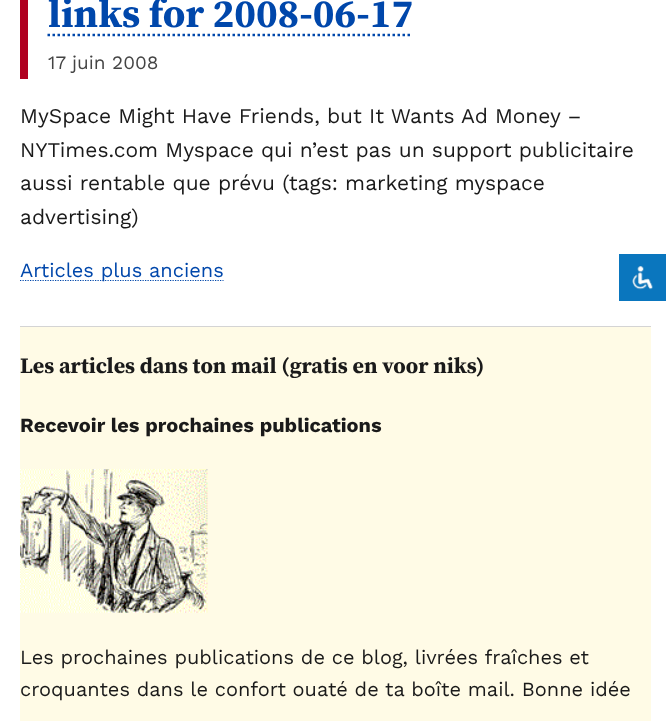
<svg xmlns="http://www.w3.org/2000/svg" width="671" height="721">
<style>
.a{font:bold 40px 'Source Serif 4';fill:#0047ab}
.b{font:19px Work Sans;fill:#444}
.c{font:21px Work Sans;fill:#1a1a1a}
.d{font:20px Work Sans;fill:#0047ab}
.e{font:bold 22px 'Source Serif 4';fill:#1a1a1a}
.f{font:bold 20px Work Sans;fill:#1a1a1a}
.g{font:20px Work Sans;fill:#1a1a1a}
</style>
<rect width="100%" height="100%" fill="#fff"/>
<path fill="#b00020" d="M20 0h8v79H20z"/>
<path fill="none" stroke="#0047ab" stroke-width="2.5" stroke-dasharray="2.5 2.5" d="M47.5 35h365"/>
<path fill="none" stroke="#0047ab" stroke-width="1.2" stroke-dasharray="1.25 1.25" d="M20 280.5h203.5"/>
<path fill="#fffbe6" d="M20 327h631v394H20z"/>
<path fill="#d4d4d4" d="M20 326h631v1H20z"/>
<image href="1.png" x="20" y="469" width="188" height="144"/>
<rect fill="#0a76be" stroke="#fff" stroke-width="4" x="617" y="252" width="51" height="51" rx="0.5"/>
<image href="2.png" x="632" y="266" width="21" height="24"/>
<text class="a" x="48" y="27">links for 2008-06-17</text>
<text class="b" x="48" y="69">17 juin 2008</text>
<text class="c" x="20" y="123">MySpace Might Have Friends, but It Wants Ad Money –</text>
<text class="c" x="20" y="157">NYTimes.com Myspace qui n’est pas un support publicitaire</text>
<text class="c" x="20" y="190">aussi rentable que prévu (tags: marketing myspace</text>
<text class="c" x="20" y="224">advertising)</text>
<text class="d" x="20" y="277">Articles plus anciens</text>
<text class="e" x="20" y="373">Les articles dans ton mail (gratis en voor niks)</text>
<text class="f" x="20" y="432">Recevoir les prochaines publications</text>
<text class="g" x="20" y="664">Les prochaines publications de ce blog, livrées fraîches et</text>
<text class="g" x="20" y="696">croquantes dans le confort ouaté de ta boîte mail. Bonne idée</text>
</svg>
